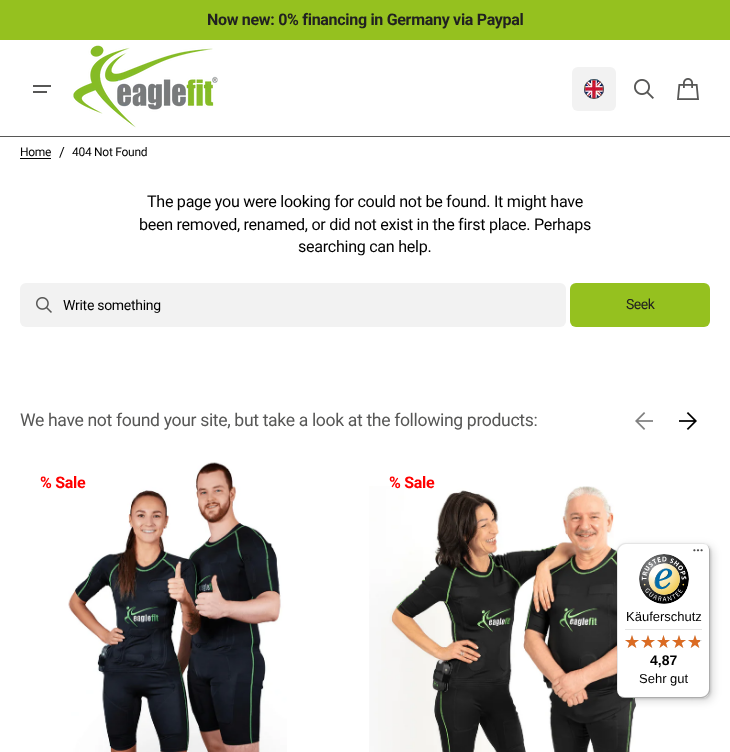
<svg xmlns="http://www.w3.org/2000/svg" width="730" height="752">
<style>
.a{font:bold 16px Roboto;letter-spacing:-0.3px;fill:#212121}
.b{font:12px Roboto;letter-spacing:-0.28px;fill:#000}
.c{font:14px Roboto;letter-spacing:-0.3px;fill:#000}
.d{font:16.1px Roboto;letter-spacing:-0.28px;fill:#000}
.e{font:14px Roboto;letter-spacing:-0.28px;fill:#000}
.f{font:14px Roboto;letter-spacing:-0.5px;fill:#212121}
.g{font:17.6px Roboto;letter-spacing:-0.35px;fill:#575756}
.h{font:bold 16px Roboto;letter-spacing:-0.3px;fill:#f00}
.i{font:13px Liberation Sans;fill:#000}
.j{font:bold 14px Liberation Sans;fill:#000}
</style>
<rect width="100%" height="100%" fill="#fff"/>
<path fill="#95c11f" d="M0 0h730v40H0z"/>
<path fill="#575756" d="M33 85h18v2H33z"/>
<path fill="#575756" d="M33 91h14v2H33z"/>
<image href="1.png" x="73" y="45" width="145" height="83"/>
<rect fill="#f2f2f2" x="572" y="67" width="44" height="44" rx="6"/>
<image href="2.png" x="584" y="79" width="20" height="20"/>
<circle fill="none" stroke="#575756" cx="594" cy="89" r="9.5"/>
<image href="3.png" x="634" y="79" width="20" height="20"/>
<image href="4.png" x="677" y="78" width="22" height="22"/>
<path fill="#575756" d="M0 136h730v1H0z"/>
<path fill="#000" d="M20 158h31v1H20z"/>
<rect fill="#f2f2f2" x="20" y="283" width="546" height="44" rx="6"/>
<image href="5.png" x="36" y="297" width="16" height="16"/>
<rect fill="#95c11f" x="570" y="283" width="140" height="44" rx="6"/>
<image href="6.png" x="635" y="412" width="18" height="18"/>
<image href="7.png" x="679" y="412" width="18" height="18"/>
<image href="8.png" x="68" y="462" width="219" height="290"/>
<image href="9.png" x="369" y="486" width="324" height="266"/>
<rect fill="#00000026" filter="blur(4px)" x="620" y="546" width="93" height="155" rx="8"/>
<rect fill="#00000026" filter="blur(1px)" x="618" y="544" width="93" height="155" rx="8"/>
<rect fill="#fff" x="617" y="543" width="93" height="155" rx="8"/>
<path fill="#0000001a" d="M626 544h77c2 0 4 1 6 3c-2-2-4-4-7-4h-77c-4 0-8 4-8 8v139c0 3 2 5 4 7c-2-2-3-4-3-6v-139c0-4 4-8 8-8z"/>
<path fill="#00000033" d="M618 694c2 2 4 4 7 4h77c4 0 8-4 8-8v-139c0-3-2-5-4-7c2 2 3 4 3 6v139c0 4-4 8-8 8h-77c-2 0-4-1-6-3z"/>
<path fill="#32323233" d="M619 695c1 2 4 3 6 3h77c4 0 8-4 8-8v-139c0-2-1-5-3-6c1 1 2 3 2 5v139c0 5-3 8-8 8h-77c-2 0-4-1-5-2z"/>
<image href="10.png" x="693" y="549" width="10" height="3"/>
<path fill="#ffffff4d" d="M702 698c4.5 0 8-3.5 8-8c0 4-4 8-8 8z"/>
<image href="11.png" x="639" y="554" width="50" height="50"/>
<path fill="#e5e5e5" d="M625 629h77v1H625z"/>
<image href="12.png" x="625" y="635" width="14" height="13"/>
<image href="12.png" x="641" y="635" width="14" height="13"/>
<image href="13.png" x="657" y="635" width="13" height="13"/>
<image href="12.png" x="672" y="635" width="14" height="13"/>
<image href="12.png" x="688" y="635" width="14" height="13"/>
<image href="14.png" x="625" y="635" width="14" height="13"/>
<image href="14.png" x="641" y="635" width="14" height="13"/>
<image href="15.png" x="657" y="635" width="13" height="13"/>
<image href="14.png" x="672" y="635" width="14" height="13"/>
<image href="16.png" x="688" y="635" width="12" height="13"/>
<text class="a" x="207" y="25">Now new: 0% financing in Germany via Paypal</text>
<text class="b" x="20" y="156">Home</text>
<text class="c" x="59" y="157">/</text>
<text class="b" x="72" y="156">404 Not Found</text>
<text class="d" x="147" y="207">The page you were looking for could not be found. It might have</text>
<text class="d" x="139" y="230">been removed, renamed, or did not exist in the first place. Perhaps</text>
<text class="d" x="298" y="252">searching can help.</text>
<text class="e" x="63" y="310">Write something</text>
<text class="f" x="626" y="309">Seek</text>
<text class="g" x="20" y="426">We have not found your site, but take a look at the following products:</text>
<text class="h" x="40" y="488">% Sale</text>
<text class="h" x="389" y="488">% Sale</text>
<text class="i" x="626" y="621">Käuferschutz</text>
<text class="j" x="650" y="665">4,87</text>
<text class="i" x="639" y="683">Sehr gut</text>
</svg>
